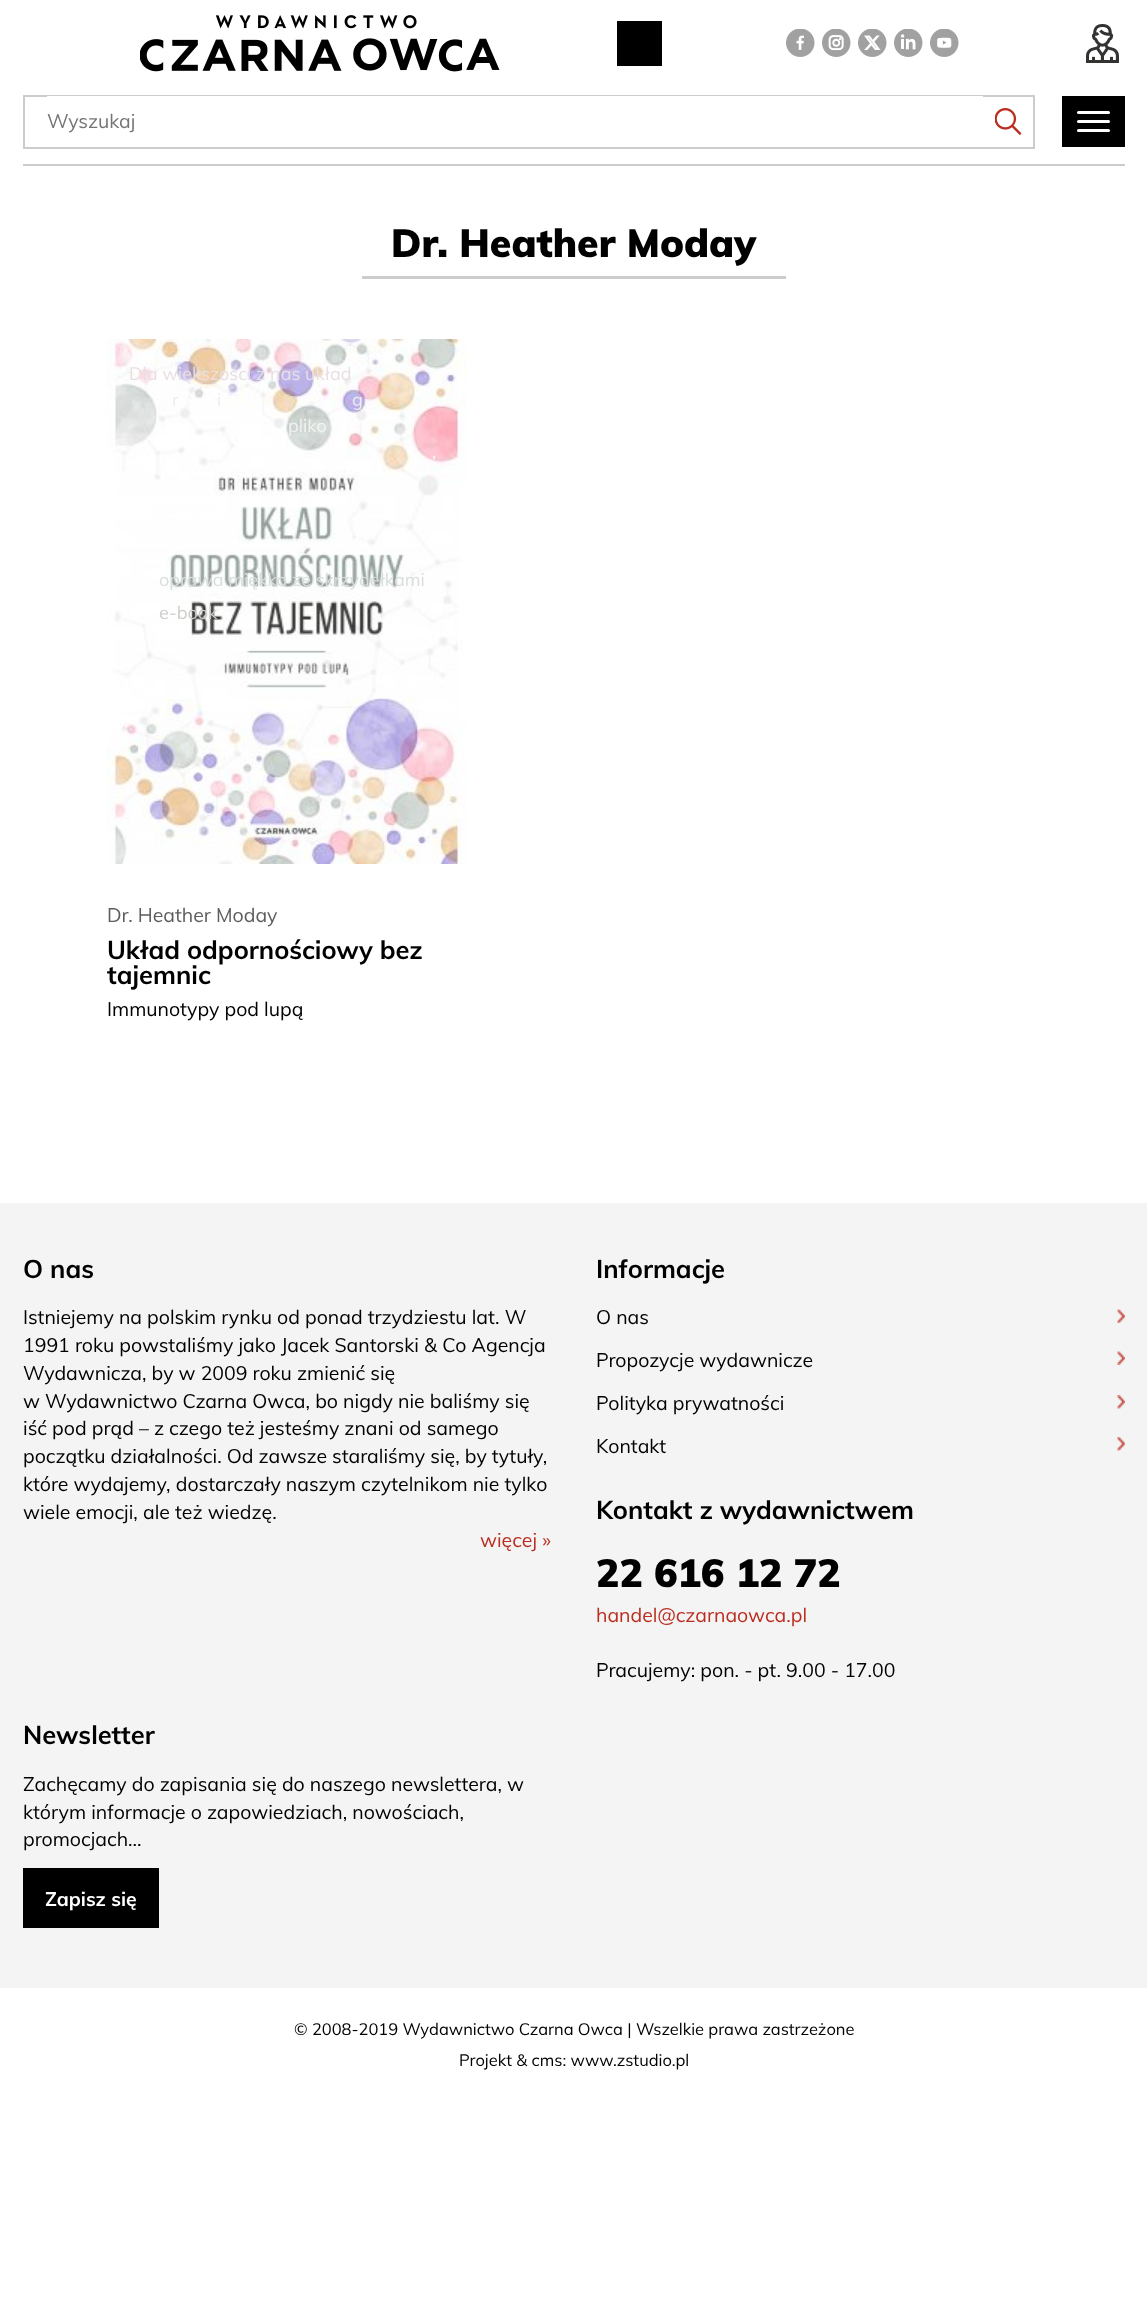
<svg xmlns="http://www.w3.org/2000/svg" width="1147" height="2308">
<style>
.a{font:19.5px Muli;fill:#757575}
.b{font:900 39px Muli;fill:#000}
.c{font:18px Muli;fill:#e8dfe5}
.d{font:18px Muli;fill:#f2eceb}
.e{font:18px Muli;fill:#f2f3f2}
.f{font:18px Muli;fill:#fcf8f7}
.g{font:18px Muli;fill:#d9dedd}
.h{font:18px Muli;fill:#cccccb}
.i{font:19.5px Muli;fill:#5d5d5d}
.j{font:bold 25.5px Muli;fill:#000}
.k{font:19.5px Muli;fill:#000}
.l{font:19.5px Muli;fill:#ba2e21}
.m{font:bold 19.5px Muli;fill:#fff}
.n{font:16.5px Muli;fill:#000}
</style>
<rect width="100%" height="100%" fill="#fff"/>
<path fill="#ccc" d="M23 164h1102v2H23z"/>
<image href="1.png" x="140" y="15" width="360" height="57"/>
<path fill="#000" d="M617 21h45v45H617z"/>
<image href="2.png" x="786" y="29" width="29" height="28"/>
<image href="3.png" x="822" y="29" width="29" height="28"/>
<image href="4.png" x="858" y="29" width="29" height="28"/>
<image href="5.png" x="894" y="29" width="29" height="28"/>
<image href="6.png" x="930" y="29" width="29" height="28"/>
<image href="7.png" x="1086" y="24" width="33" height="39"/>
<path fill="none" stroke="#ccc" stroke-width="2" d="M24 96h1010v52H24z"/>
<path fill="#fff" d="M47 96h936v1H47z"/>
<image href="8.png" x="995" y="108" width="27" height="27"/>
<path fill="#000" d="M1062 96h63v51H1062z"/>
<rect fill="#fff" x="1077" y="111" width="33" height="3" rx="1.5"/>
<rect fill="#fff" x="1077" y="120" width="33" height="3" rx="1.5"/>
<rect fill="#fff" x="1077" y="129" width="33" height="3" rx="1.5"/>
<path fill="#ccc" d="M362 276h424v3H362z"/>
<image href="9.png" x="106" y="339" width="361" height="525"/>
<path fill="#f4f4f4" d="M0 1203h1147v785H0z"/>
<image href="10.png" x="1117" y="1309" width="8" height="14"/>
<image href="10.png" x="1117" y="1351" width="8" height="14"/>
<image href="11.png" x="1117" y="1395" width="8" height="14"/>
<image href="11.png" x="1117" y="1437" width="8" height="14"/>
<path fill="#000" d="M23 1868h136v60H23z"/>
<text class="a" x="47" y="128">Wyszukaj</text>
<text class="b" x="391" y="257">Dr. Heather Moday</text>
<text class="c" x="129" y="380">Dla większości z nas układ</text>
<text class="d" x="172" y="406">r</text>
<text class="d" x="217" y="406">i</text>
<text class="d" x="352" y="406">g</text>
<text class="e" x="288" y="432">pliko</text>
<text class="f" x="432" y="458">,</text>
<text class="g" x="159" y="586">oprawa miękka ze skrzydełkami</text>
<text class="h" x="159" y="619">e-book</text>
<text class="i" x="107" y="922">Dr. Heather Moday</text>
<text class="j" x="107" y="959">Układ odpornościowy bez</text>
<text class="j" x="107" y="984">tajemnic</text>
<text class="k" x="107" y="1016">Immunotypy pod lupą</text>
<text class="j" x="23" y="1278">O nas</text>
<text class="k" x="23" y="1324">Istniejemy na polskim rynku od ponad trzydziestu lat. W</text>
<text class="k" x="23" y="1352">1991 roku powstaliśmy jako Jacek Santorski &amp; Co Agencja</text>
<text class="k" x="23" y="1380">Wydawnicza, by w 2009 roku zmienić się</text>
<text class="k" x="23" y="1408">w Wydawnictwo Czarna Owca, bo nigdy nie baliśmy się</text>
<text class="k" x="23" y="1435">iść pod prąd – z czego też jesteśmy znani od samego</text>
<text class="k" x="23" y="1463">początku działalności. Od zawsze staraliśmy się, by tytuły,</text>
<text class="k" x="23" y="1491">które wydajemy, dostarczały naszym czytelnikom nie tylko</text>
<text class="k" x="23" y="1519">wiele emocji, ale też wiedzę.</text>
<text class="l" x="480" y="1547">więcej »</text>
<text class="j" x="596" y="1278">Informacje</text>
<text class="k" x="596" y="1324">O nas</text>
<text class="k" x="596" y="1367">Propozycje wydawnicze</text>
<text class="k" x="596" y="1410">Polityka prywatności</text>
<text class="k" x="596" y="1453">Kontakt</text>
<text class="j" x="596" y="1519">Kontakt z wydawnictwem</text>
<text class="b" x="596" y="1587">22 616 12 72</text>
<text class="l" x="596" y="1622">handel@czarnaowca.pl</text>
<text class="k" x="596" y="1677">Pracujemy: pon. - pt. 9.00 - 17.00</text>
<text class="j" x="23" y="1744">Newsletter</text>
<text class="k" x="23" y="1791">Zachęcamy do zapisania się do naszego newslettera, w</text>
<text class="k" x="23" y="1819">którym informacje o zapowiedziach, nowościach,</text>
<text class="k" x="23" y="1846">promocjach…</text>
<text class="m" x="45" y="1906">Zapisz się</text>
<text class="n" x="294" y="2035">© 2008-2019 Wydawnictwo Czarna Owca | Wszelkie prawa zastrzeżone</text>
<text class="n" x="459" y="2066">Projekt &amp; cms: www.zstudio.pl</text>
</svg>
